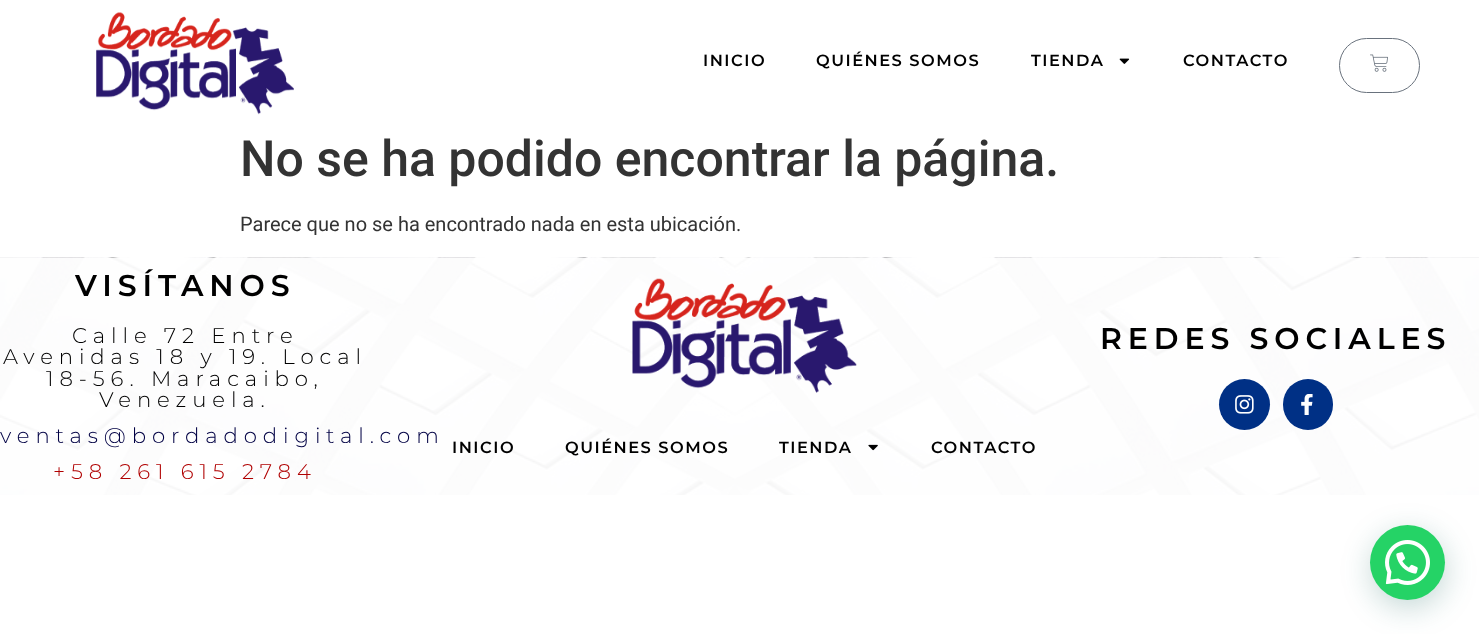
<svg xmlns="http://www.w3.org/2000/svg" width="1479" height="634">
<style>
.a{font:600 16.25px Montserrat;letter-spacing:1.5px;fill:#000}
.b{font:500 50px Roboto;fill:#333}
.c{font:20px Roboto;fill:#333}
.d{font:600 30px Montserrat;letter-spacing:5.9px;fill:#000}
.e{font:300 21.25px Montserrat;letter-spacing:5.9px;fill:#000}
.f{font:300 21.25px Montserrat;letter-spacing:5.9px;fill:#010044}
.g{font:300 21.25px Montserrat;letter-spacing:5.9px;fill:#b00101}
</style>
<rect width="100%" height="100%" fill="#fff"/>
<image href="1.png" x="96" y="12" width="198" height="103"/>
<image href="2.png" x="1119" y="58" width="11" height="6"/>
<rect fill="none" stroke="#69727d" x="1339.5" y="38.5" width="80" height="54" rx="27"/>
<image href="3.png" x="1370" y="54" width="18" height="18"/>
<image href="4.png" x="0" y="257" width="1479" height="238"/>
<circle fill="#003085" cx="1244.5" cy="404.5" r="25.5"/>
<image href="5.png" x="1235" y="395" width="19" height="19"/>
<rect fill="#003085" x="1283" y="379" width="50" height="51" rx="25"/>
<image href="6.png" x="1301" y="394" width="12" height="21"/>
<image href="7.png" x="632" y="278" width="225" height="115"/>
<image href="8.png" x="868" y="444" width="10" height="7"/>
<rect fill="#075e543d" filter="blur(15px)" x="1371" y="533" width="75" height="75" rx="37.5"/>
<circle fill="#25d366" cx="1407.5" cy="562.5" r="37.5"/>
<image href="9.png" x="1385" y="540" width="45" height="45"/>
<text class="a" x="703" y="66">INICIO</text>
<text class="a" x="816" y="66">QUIÉNES SOMOS</text>
<text class="a" x="1031" y="66">TIENDA</text>
<text class="a" x="1183" y="66">CONTACTO</text>
<text class="b" x="240" y="176">No se ha podido encontrar la página.</text>
<text class="c" x="240" y="231">Parece que no se ha encontrado nada en esta ubicación.</text>
<text class="d" x="75" y="296">VISÍTANOS</text>
<text class="e" x="72" y="343">Calle 72 Entre</text>
<text class="e" x="3" y="364">Avenidas 18 y 19. Local</text>
<text class="e" x="46" y="386">18-56. Maracaibo,</text>
<text class="e" x="99" y="407">Venezuela.</text>
<text class="f" x="0" y="443">ventas@bordadodigital.com</text>
<text class="g" x="53" y="479">+58 261 615 2784</text>
<text class="d" x="1100" y="349">REDES SOCIALES</text>
<text class="a" x="452" y="453">INICIO</text>
<text class="a" x="565" y="453">QUIÉNES SOMOS</text>
<text class="a" x="779" y="453">TIENDA</text>
<text class="a" x="931" y="453">CONTACTO</text>
</svg>
